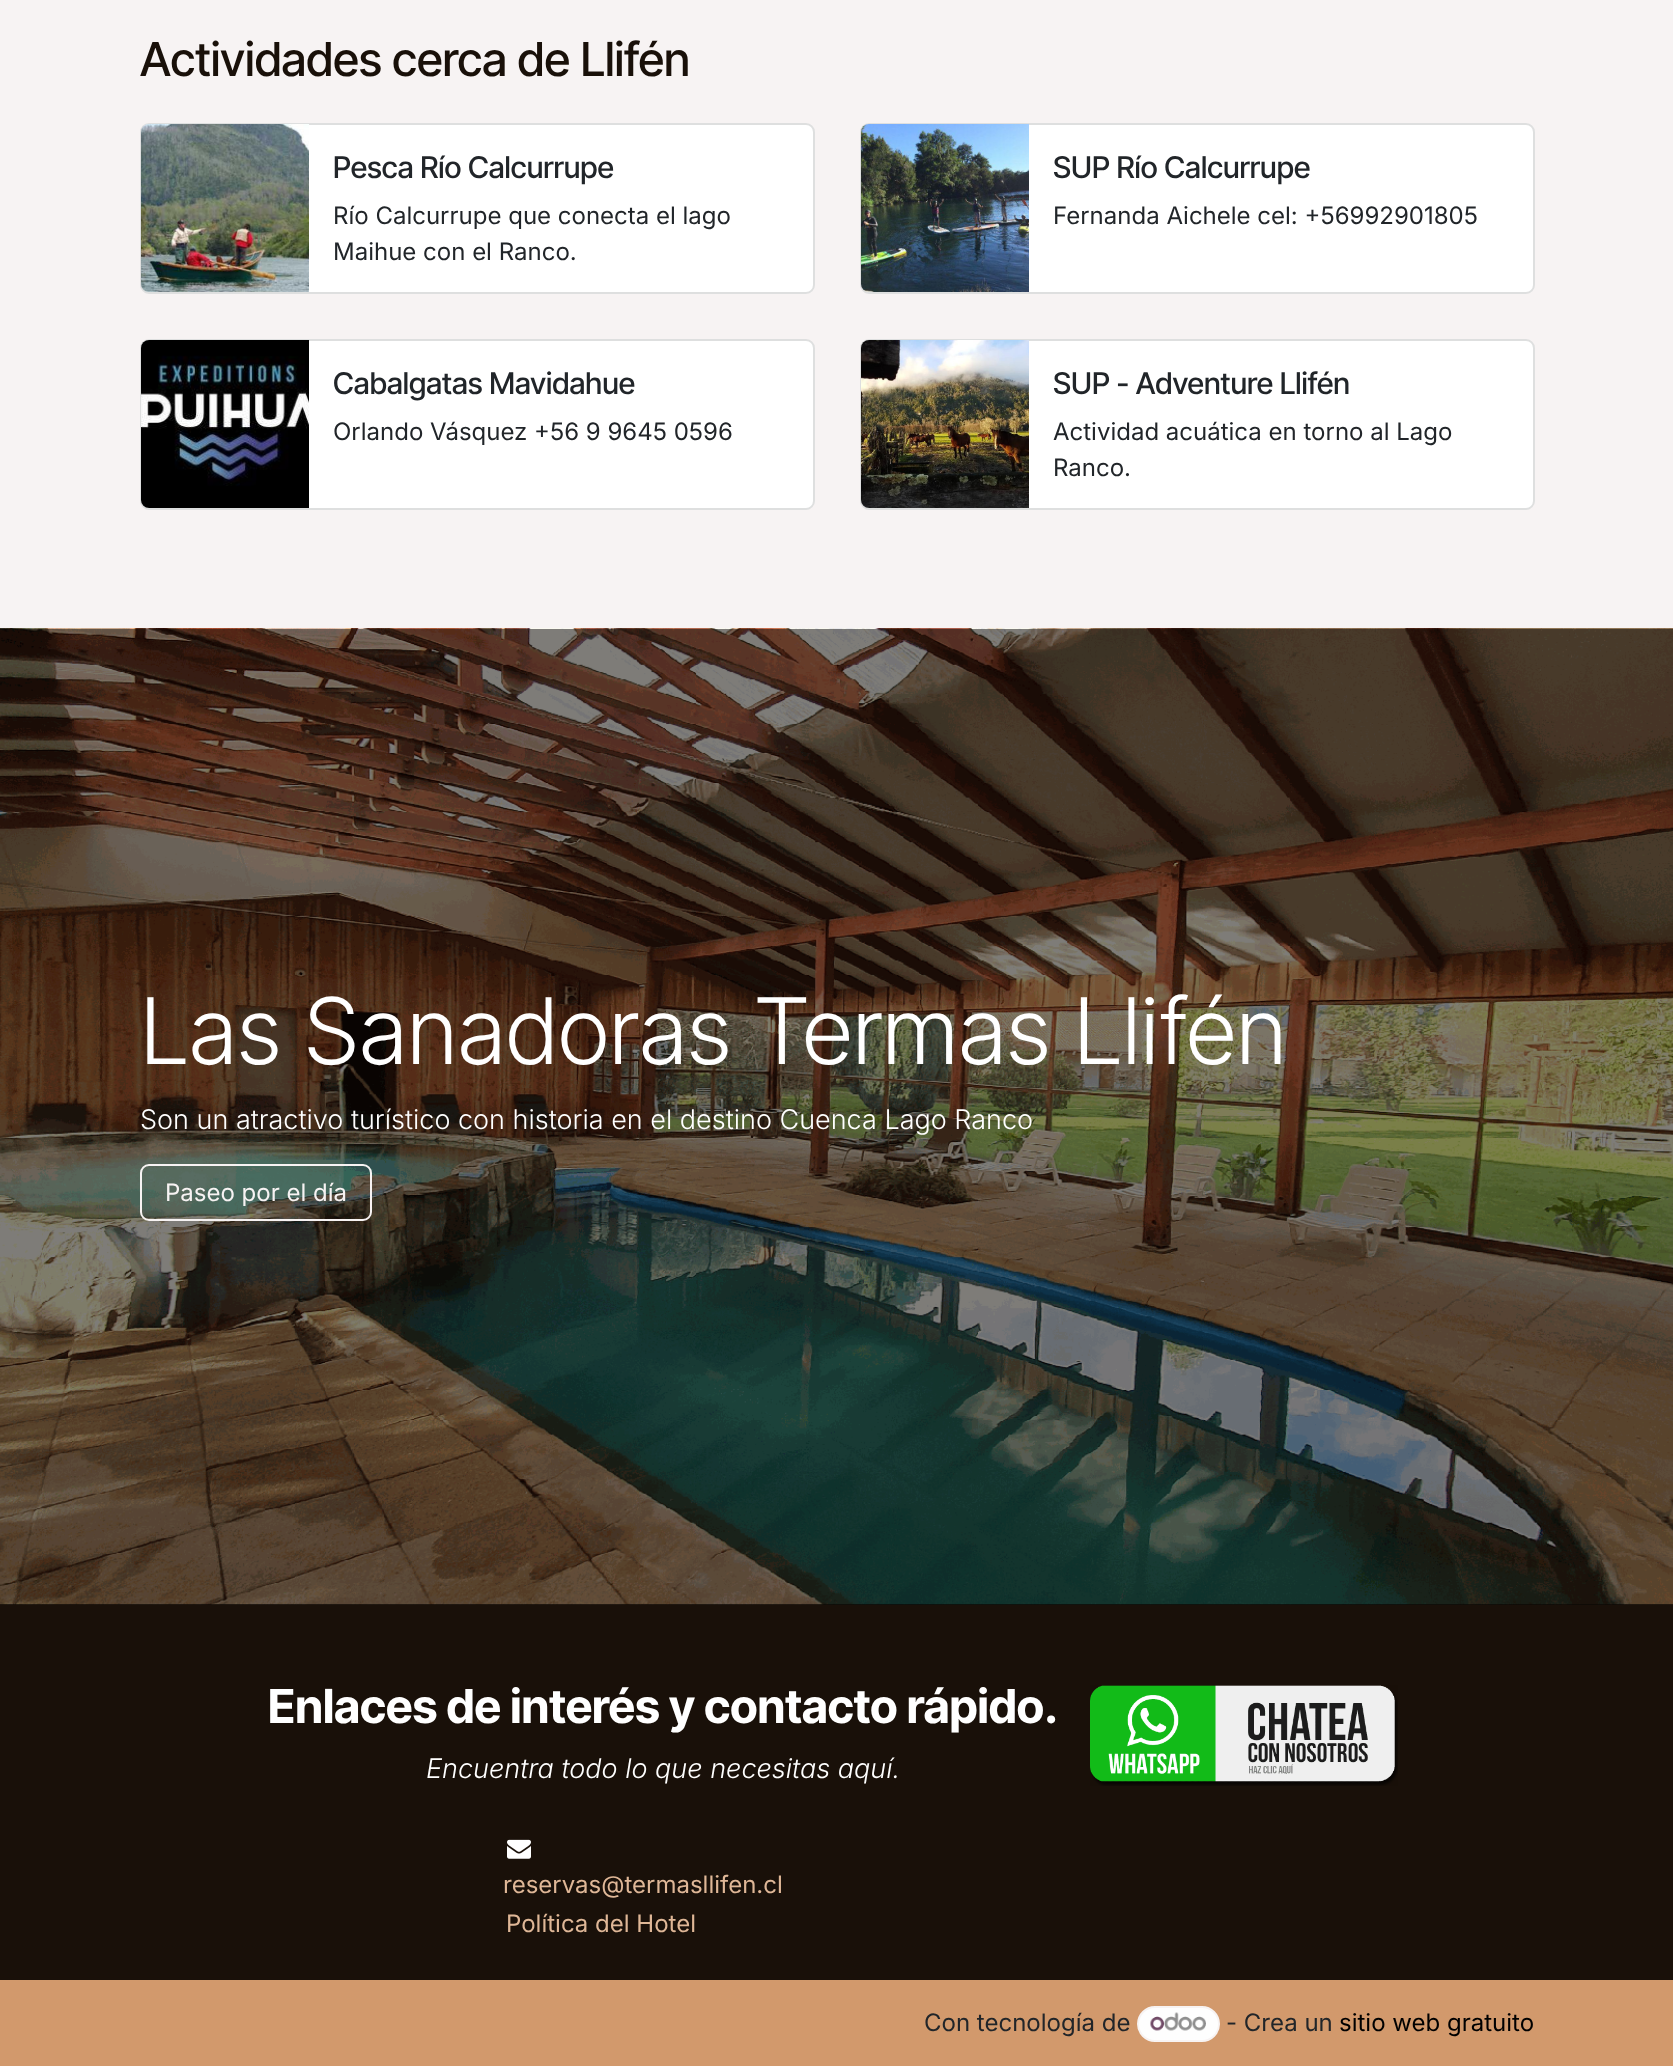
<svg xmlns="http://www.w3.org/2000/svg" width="1673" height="2066">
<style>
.a{font:500 46.9px Inter Tight;fill:#191009}
.b{font:500 30px Inter Tight;fill:#212529}
.c{font:24px Inter;fill:#212529}
.d{font:300 91.8px Inter Tight;fill:#fff}
.e{font:300 27px Inter;fill:#fff}
.f{font:24px Inter;fill:#f7f3f3}
.g{font:bold 46.9px Inter Tight;fill:#fff}
.h{font:italic 300 27px Inter;fill:#fff}
.i{font:24px Inter;fill:#dfb797}
.j{font:24px Inter;fill:#000}
</style>
<rect width="100%" height="100%" fill="#d2996c"/>
<path fill="#f7f3f3" d="M0 0h1673v628H0z"/>
<rect fill="#fff" x="140" y="123" width="675" height="171" rx="9"/>
<rect fill="none" stroke="#21252926" stroke-width="2" x="141" y="124" width="673" height="169" rx="8"/>
<image href="1.png" x="141" y="124" width="168" height="168"/>
<rect fill="#fff" x="860" y="123" width="675" height="171" rx="9"/>
<rect fill="none" stroke="#21252926" stroke-width="2" x="861" y="124" width="673" height="169" rx="8"/>
<image href="2.png" x="861" y="124" width="168" height="168"/>
<rect fill="#fff" x="140" y="339" width="675" height="171" rx="9"/>
<rect fill="none" stroke="#21252926" stroke-width="2" x="141" y="340" width="673" height="169" rx="8"/>
<image href="3.png" x="141" y="340" width="168" height="168"/>
<rect fill="#fff" x="860" y="339" width="675" height="171" rx="9"/>
<rect fill="none" stroke="#21252926" stroke-width="2" x="861" y="340" width="673" height="169" rx="8"/>
<image href="4.png" x="861" y="340" width="168" height="168"/>
<path fill="#0d0805" d="M0 1604h1673v1H0z"/>
<image href="5.png" x="0" y="628" width="1673" height="977"/>
<rect fill="none" stroke="#f7f3f3" stroke-width="2" x="141" y="1165" width="230" height="55" rx="8"/>
<path fill="#191009" d="M0 1605h1673v375H0z"/>
<image href="6.png" x="1090" y="1685" width="308" height="101"/>
<image href="7.png" x="507" y="1839" width="24" height="20"/>
<rect fill="#fefefe" stroke="#f7f3f3" stroke-width="2" x="1138" y="2007" width="81" height="34" rx="17"/>
<image href="8.png" x="1150" y="2012" width="56" height="19"/>
<text class="a" x="140" y="76">Actividades cerca de Llifén</text>
<text class="b" x="333" y="178">Pesca Río Calcurrupe</text>
<text class="c" x="333" y="224">Río Calcurrupe que conecta el lago</text>
<text class="c" x="333" y="260">Maihue con el Ranco.</text>
<text class="b" x="1053" y="178">SUP Río Calcurrupe</text>
<text class="c" x="1053" y="224">Fernanda Aichele cel: +56992901805</text>
<text class="b" x="333" y="394">Cabalgatas Mavidahue</text>
<text class="c" x="333" y="440">Orlando Vásquez +56 9 9645 0596</text>
<text class="b" x="1053" y="394">SUP - Adventure Llifén</text>
<text class="c" x="1053" y="440">Actividad acuática en torno al Lago</text>
<text class="c" x="1053" y="476">Ranco.</text>
<text class="d" x="140" y="1064">Las Sanadoras Termas Llifén</text>
<text class="e" x="140" y="1129">Son un atractivo turístico con historia en el destino Cuenca Lago Ranco</text>
<text class="f" x="165" y="1201">Paseo por el día</text>
<text class="g" x="268" y="1723">Enlaces de interés y contacto rápido.</text>
<text class="h" x="426" y="1778">Encuentra todo lo que necesitas aquí.</text>
<text class="i" x="503" y="1893">reservas@termasllifen.cl</text>
<text class="i" x="506" y="1932">Política del Hotel</text>
<text class="c" x="924" y="2031">Con tecnología de</text>
<text class="c" x="1226" y="2031">- Crea un</text>
<text class="j" x="1339" y="2031">sitio web gratuito</text>
</svg>
